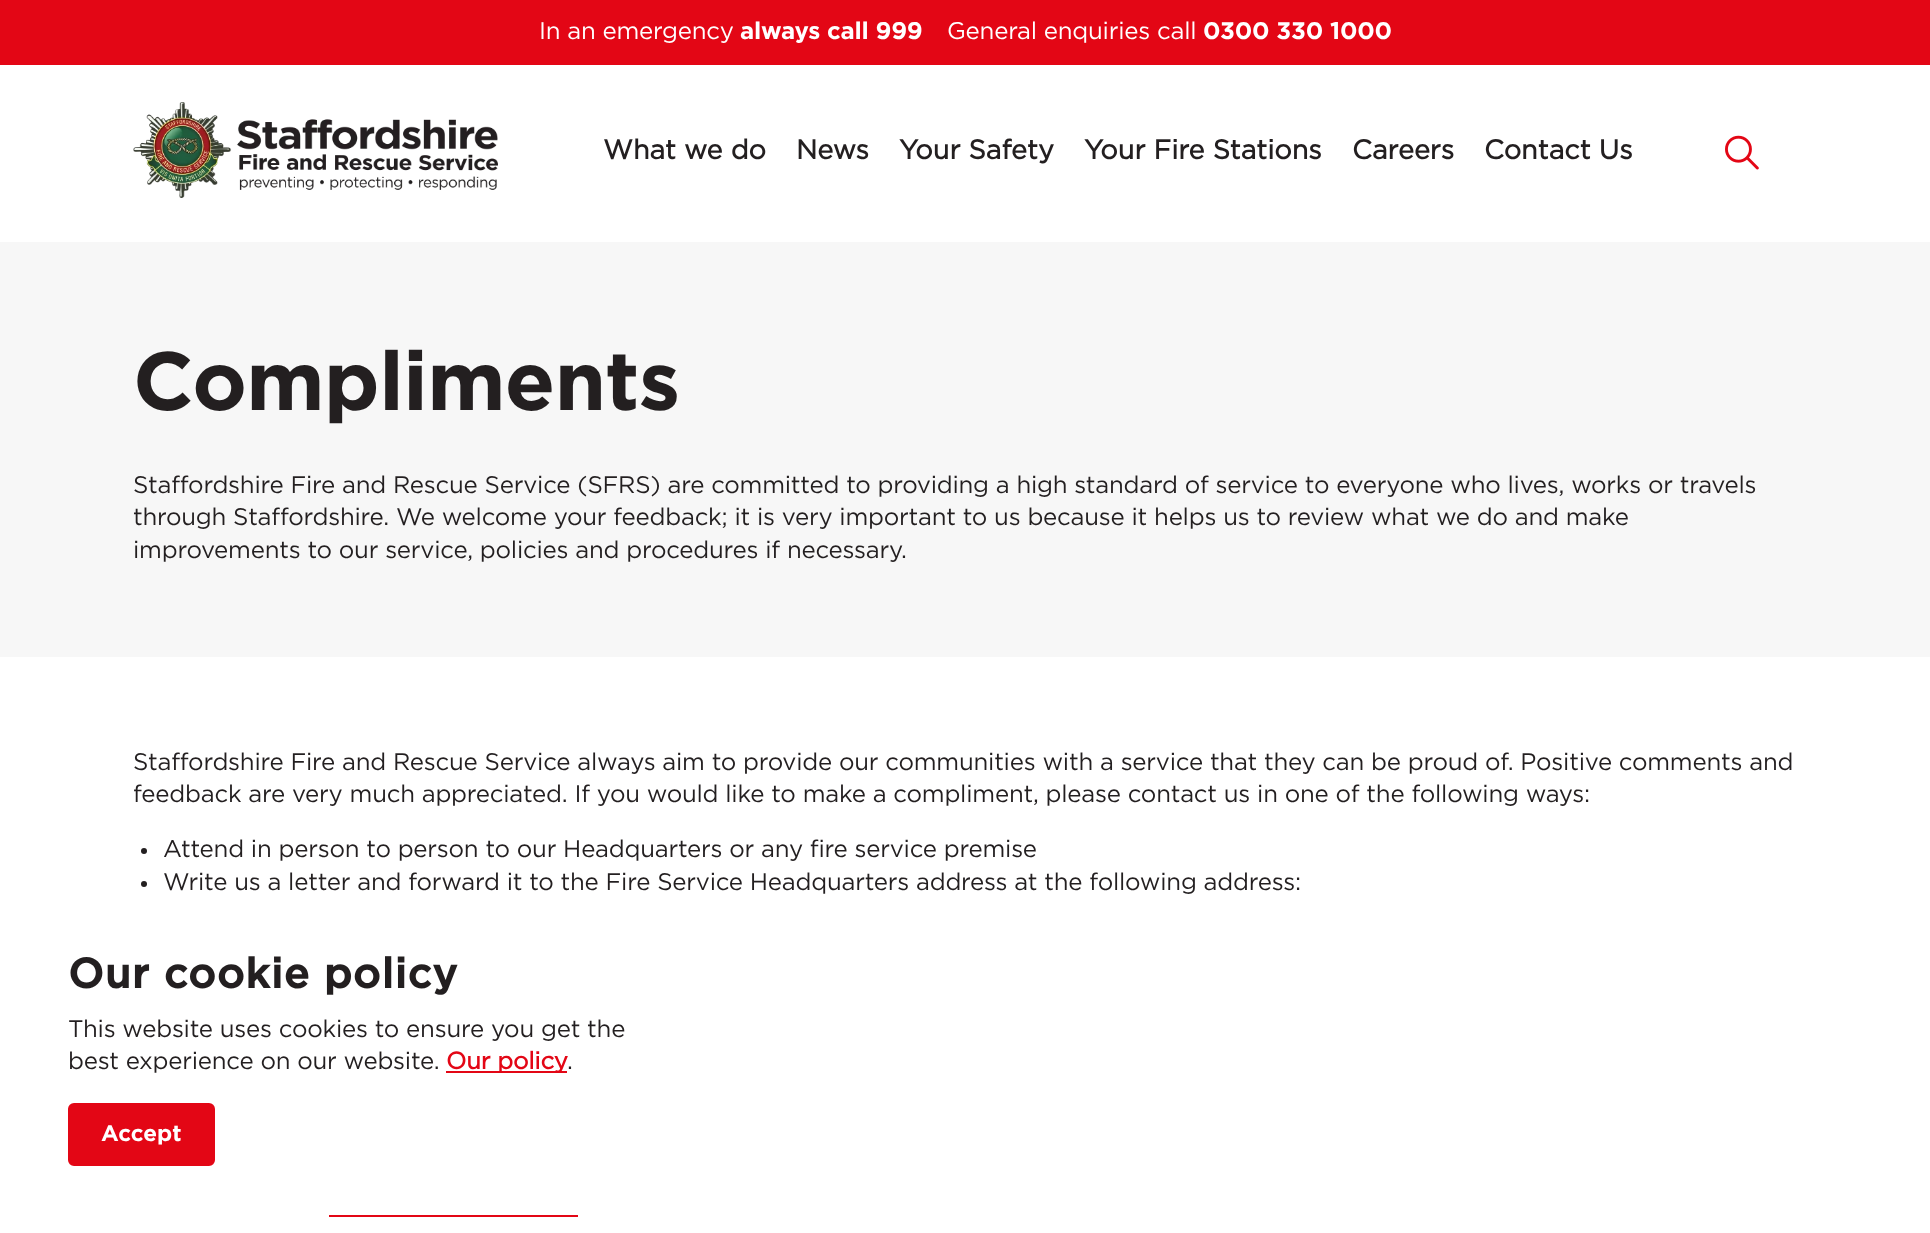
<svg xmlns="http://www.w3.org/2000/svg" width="1930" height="1233">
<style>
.a{font:24px Gotham;letter-spacing:-0.22px;fill:#fff}
.b{font:bold 24px Gotham;letter-spacing:-0.22px;fill:#fff}
.c{font:bold 27px 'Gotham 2';fill:#231f20}
.d{font:bold 82.5px Gotham;letter-spacing:-0.75px;fill:#231f20}
.e{font:24px Gotham;letter-spacing:-0.22px;fill:#231f20}
.f{font:bold 42px 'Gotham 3';letter-spacing:1px;fill:#231f20}
.g{font:bold 24px 'Gotham 2';letter-spacing:-0.22px;fill:#e30615}
.h{font:bold 22.5px Gotham;fill:#fff}
</style>
<rect width="100%" height="100%" fill="#fff"/>
<path fill="#e30615" d="M0 0h1930v65H0z"/>
<image href="1.png" x="133" y="102" width="365" height="96"/>
<image href="2.png" x="1725" y="135" width="34" height="35"/>
<path fill="#f7f7f7" d="M0 242h1930v415H0z"/>
<circle fill="#231f20" cx="144" cy="851" r="3"/>
<circle fill="#231f20" cx="144" cy="884" r="3"/>
<path fill="#e30615" d="M329 1215h249v2H329z"/>
<path fill="#e30615" d="M446 1071h121v2H446z"/>
<rect fill="#e30615" stroke="#e30615" stroke-width="3" x="69.5" y="1104.5" width="144" height="60" rx="4.5"/>
<text class="a" x="539" y="39">In an emergency</text>
<text class="b" x="740" y="39">always call 999</text>
<text class="a" x="947" y="39">General enquiries call</text>
<text class="b" x="1203" y="39">0300 330 1000</text>
<text class="c" x="603" y="159">What we do</text>
<text class="c" x="796" y="159">News</text>
<text class="c" x="899" y="159">Your Safety</text>
<text class="c" x="1084" y="159">Your Fire Stations</text>
<text class="c" x="1352" y="159">Careers</text>
<text class="c" x="1484" y="159">Contact Us</text>
<text class="d" x="133" y="410">Compliments</text>
<text class="e" x="133" y="493">Staffordshire Fire and Rescue Service (SFRS) are committed to providing a high standard of service to everyone who lives, works or travels</text>
<text class="e" x="133" y="525">through Staffordshire. We welcome your feedback; it is very important to us because it helps us to review what we do and make</text>
<text class="e" x="133" y="558">improvements to our service, policies and procedures if necessary.</text>
<text class="e" x="133" y="770">Staffordshire Fire and Rescue Service always aim to provide our communities with a service that they can be proud of. Positive comments and</text>
<text class="e" x="133" y="802">feedback are very much appreciated. If you would like to make a compliment, please contact us in one of the following ways:</text>
<text class="e" x="163" y="857">Attend in person to person to our Headquarters or any fire service premise</text>
<text class="e" x="163" y="890">Write us a letter and forward it to the Fire Service Headquarters address at the following address:</text>
<text class="f" x="68" y="988">Our cookie policy</text>
<text class="e" x="68" y="1037">This website uses cookies to ensure you get the</text>
<text class="e" x="68" y="1069">best experience on our website.</text>
<text class="g" x="446" y="1069">Our policy</text>
<text class="e" x="567" y="1069">.</text>
<text class="h" x="101" y="1141">Accept</text>
</svg>
